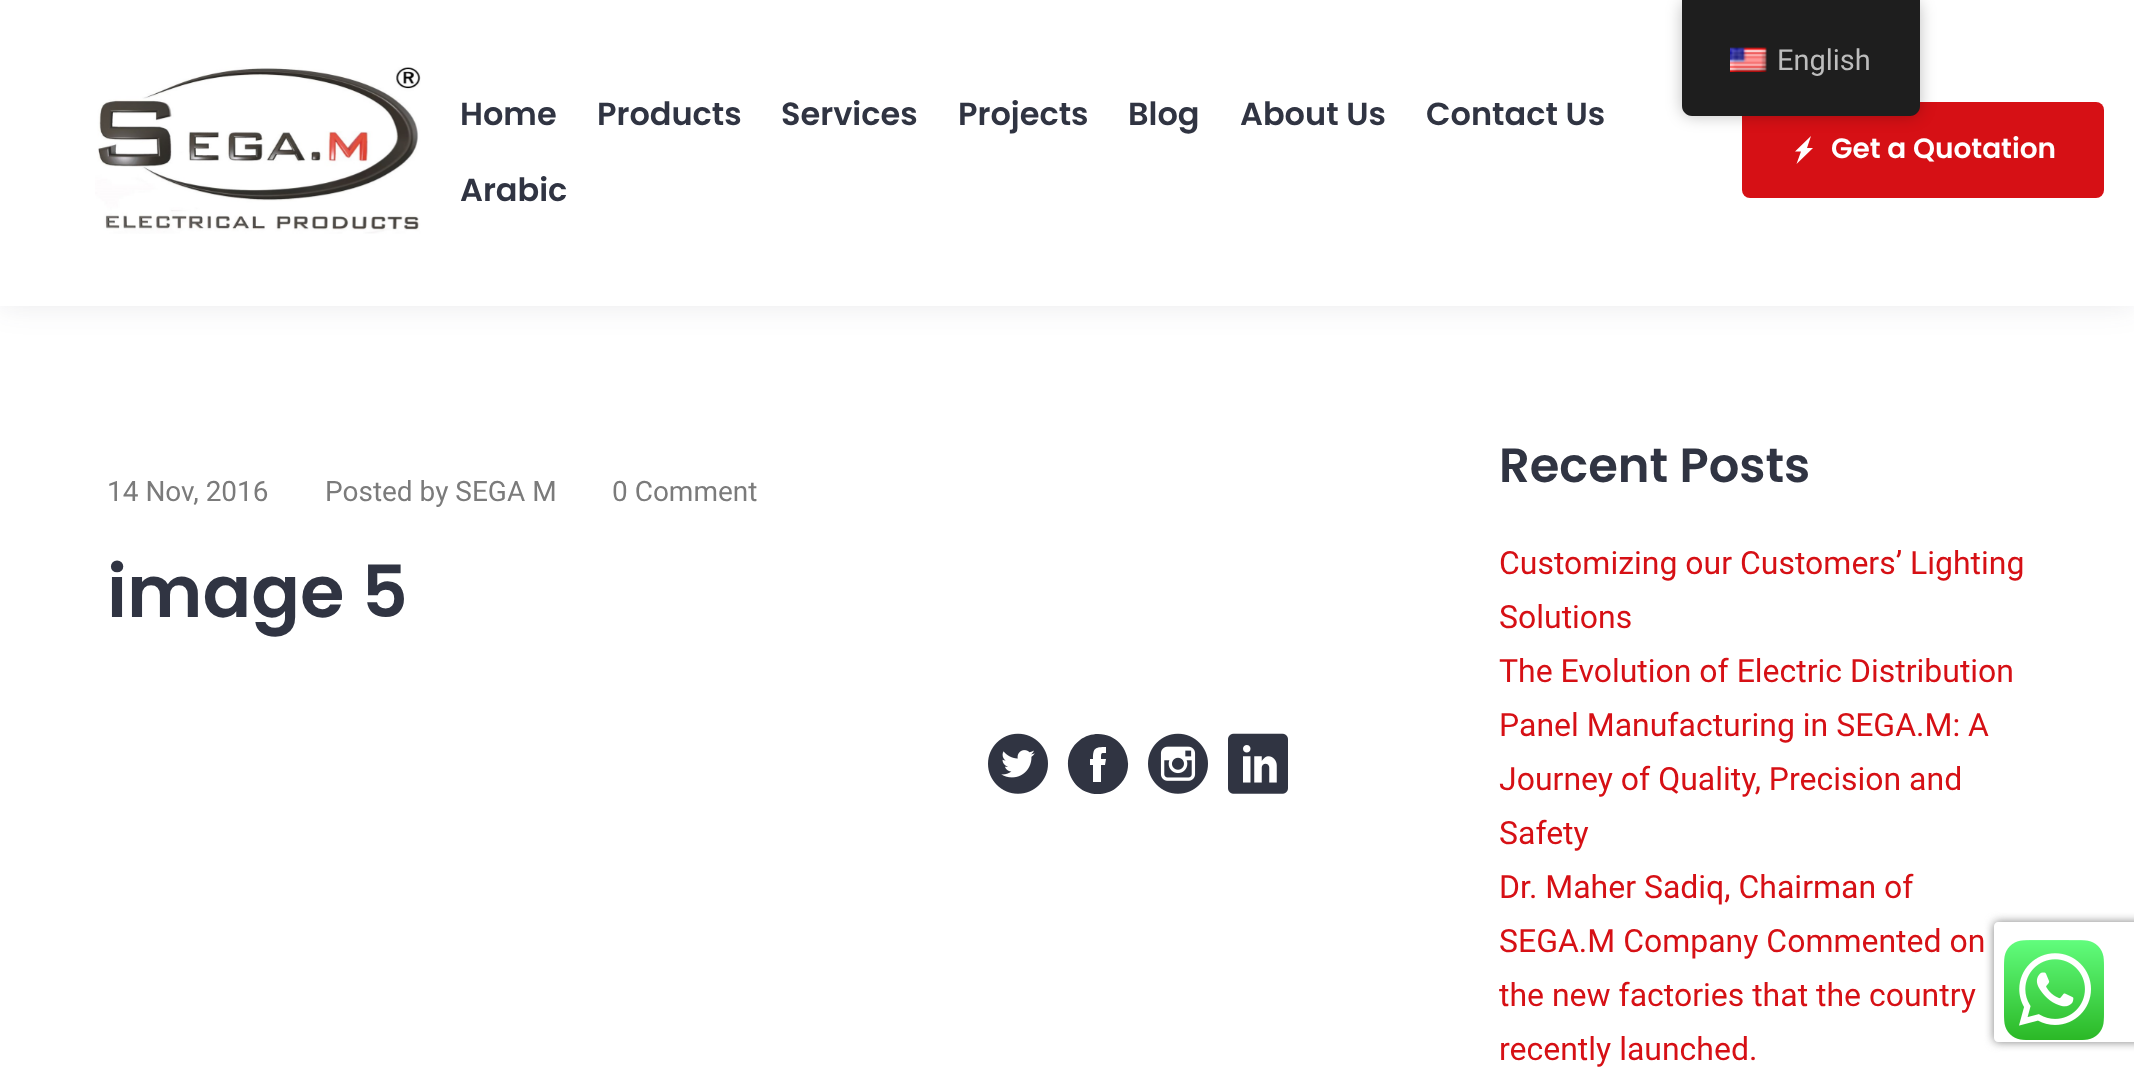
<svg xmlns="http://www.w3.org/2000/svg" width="2134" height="1069">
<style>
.a{font:29px Roboto;fill:#bdbdbd}
.b{font:28px Roboto;fill:#7b7b7b}
.c{font:600 72px Poppins;fill:#303442}
.d{font:600 48px Poppins;fill:#303442}
.e{font:32px Roboto;fill:#d61015}
.f{font:600 32px Poppins;fill:#303442}
.g{font:600 28px Poppins;fill:#fff}
</style>
<defs>
<clipPath id="clip1"><path d="M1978 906h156v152h-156zm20 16h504c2 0 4 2 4 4v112c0 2-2 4-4 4h-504c-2 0-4-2-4-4v-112c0-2 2-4 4-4z" clip-rule="evenodd"/></clipPath>
</defs>
<rect width="100%" height="100%" fill="#fff"/>
<path fill="#3034421a" filter="blur(15px)" d="M0 0h2134v306H0z"/>
<path fill="#fff" d="M0 0h2134v306H0z"/>
<rect fill="#d61015" x="1742" y="102" width="362" height="96" rx="8"/>
<path fill="#fff" d="M1811 136l-16 15.5h6l-4.5 12.5l16.5-16h-6z"/>
<rect fill="#00000040" filter="blur(8px)" x="1682" width="238" height="116" rx="10"/>
<path fill="#1e1e1e" d="M1682 0h238v106c0 5.5-4.5 10-10 10h-218c-5.5 0-10-4.5-10-10z"/>
<image href="1.png" x="1730" y="47" width="37" height="25"/>
<image href="2.png" x="988" y="733" width="60" height="61"/>
<path fill="#303442" d="M1098 734c-6 0-13 2-18 6c-23 17-11 54 18 54c6 0 13-2 18-6c23-17 11-54-18-54zm7 31h-4v17h-8v-17h-3v-6h3c0-11 2-12 13-12v6c-5 0-5-1-5 6h5z"/>
<image href="3.png" x="1148" y="733" width="60" height="61"/>
<image href="4.png" x="1228" y="733" width="60" height="61"/>
<g clip-path="url(#clip1)">
<rect fill="#808080" filter="blur(5px)" x="1994" y="922" width="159" height="120" rx="4"/>
</g>
<image href="5.png" x="2004" y="940" width="100" height="100"/>
<image href="6.png" x="95" y="67" width="326" height="167"/>
<text class="a" x="1777" y="70">English</text>
<text class="b" x="107" y="501">14 Nov, 2016</text>
<text class="b" x="325" y="501">Posted by SEGA M</text>
<text class="b" x="612" y="501">0 Comment</text>
<text class="c" x="107" y="617">image 5</text>
<text class="d" x="1499" y="482">Recent Posts</text>
<text class="e" x="1499" y="574">Customizing our Customers’ Lighting</text>
<text class="e" x="1499" y="628">Solutions</text>
<text class="e" x="1499" y="682">The Evolution of Electric Distribution</text>
<text class="e" x="1499" y="736">Panel Manufacturing in SEGA.M: A</text>
<text class="e" x="1499" y="790">Journey of Quality, Precision and</text>
<text class="e" x="1499" y="844">Safety</text>
<text class="e" x="1499" y="898">Dr. Maher Sadiq, Chairman of</text>
<text class="e" x="1499" y="952">SEGA.M Company Commented on</text>
<text class="e" x="1499" y="1006">the new factories that the country</text>
<text class="e" x="1499" y="1060">recently launched.</text>
<text class="f" x="460" y="125">Home</text>
<text class="f" x="597" y="125">Products</text>
<text class="f" x="781" y="125">Services</text>
<text class="f" x="958" y="125">Projects</text>
<text class="f" x="1128" y="125">Blog</text>
<text class="f" x="1240" y="125">About Us</text>
<text class="f" x="1426" y="125">Contact Us</text>
<text class="f" x="460" y="201">Arabic</text>
<text class="g" x="1831" y="158">Get a Quotation</text>
</svg>
